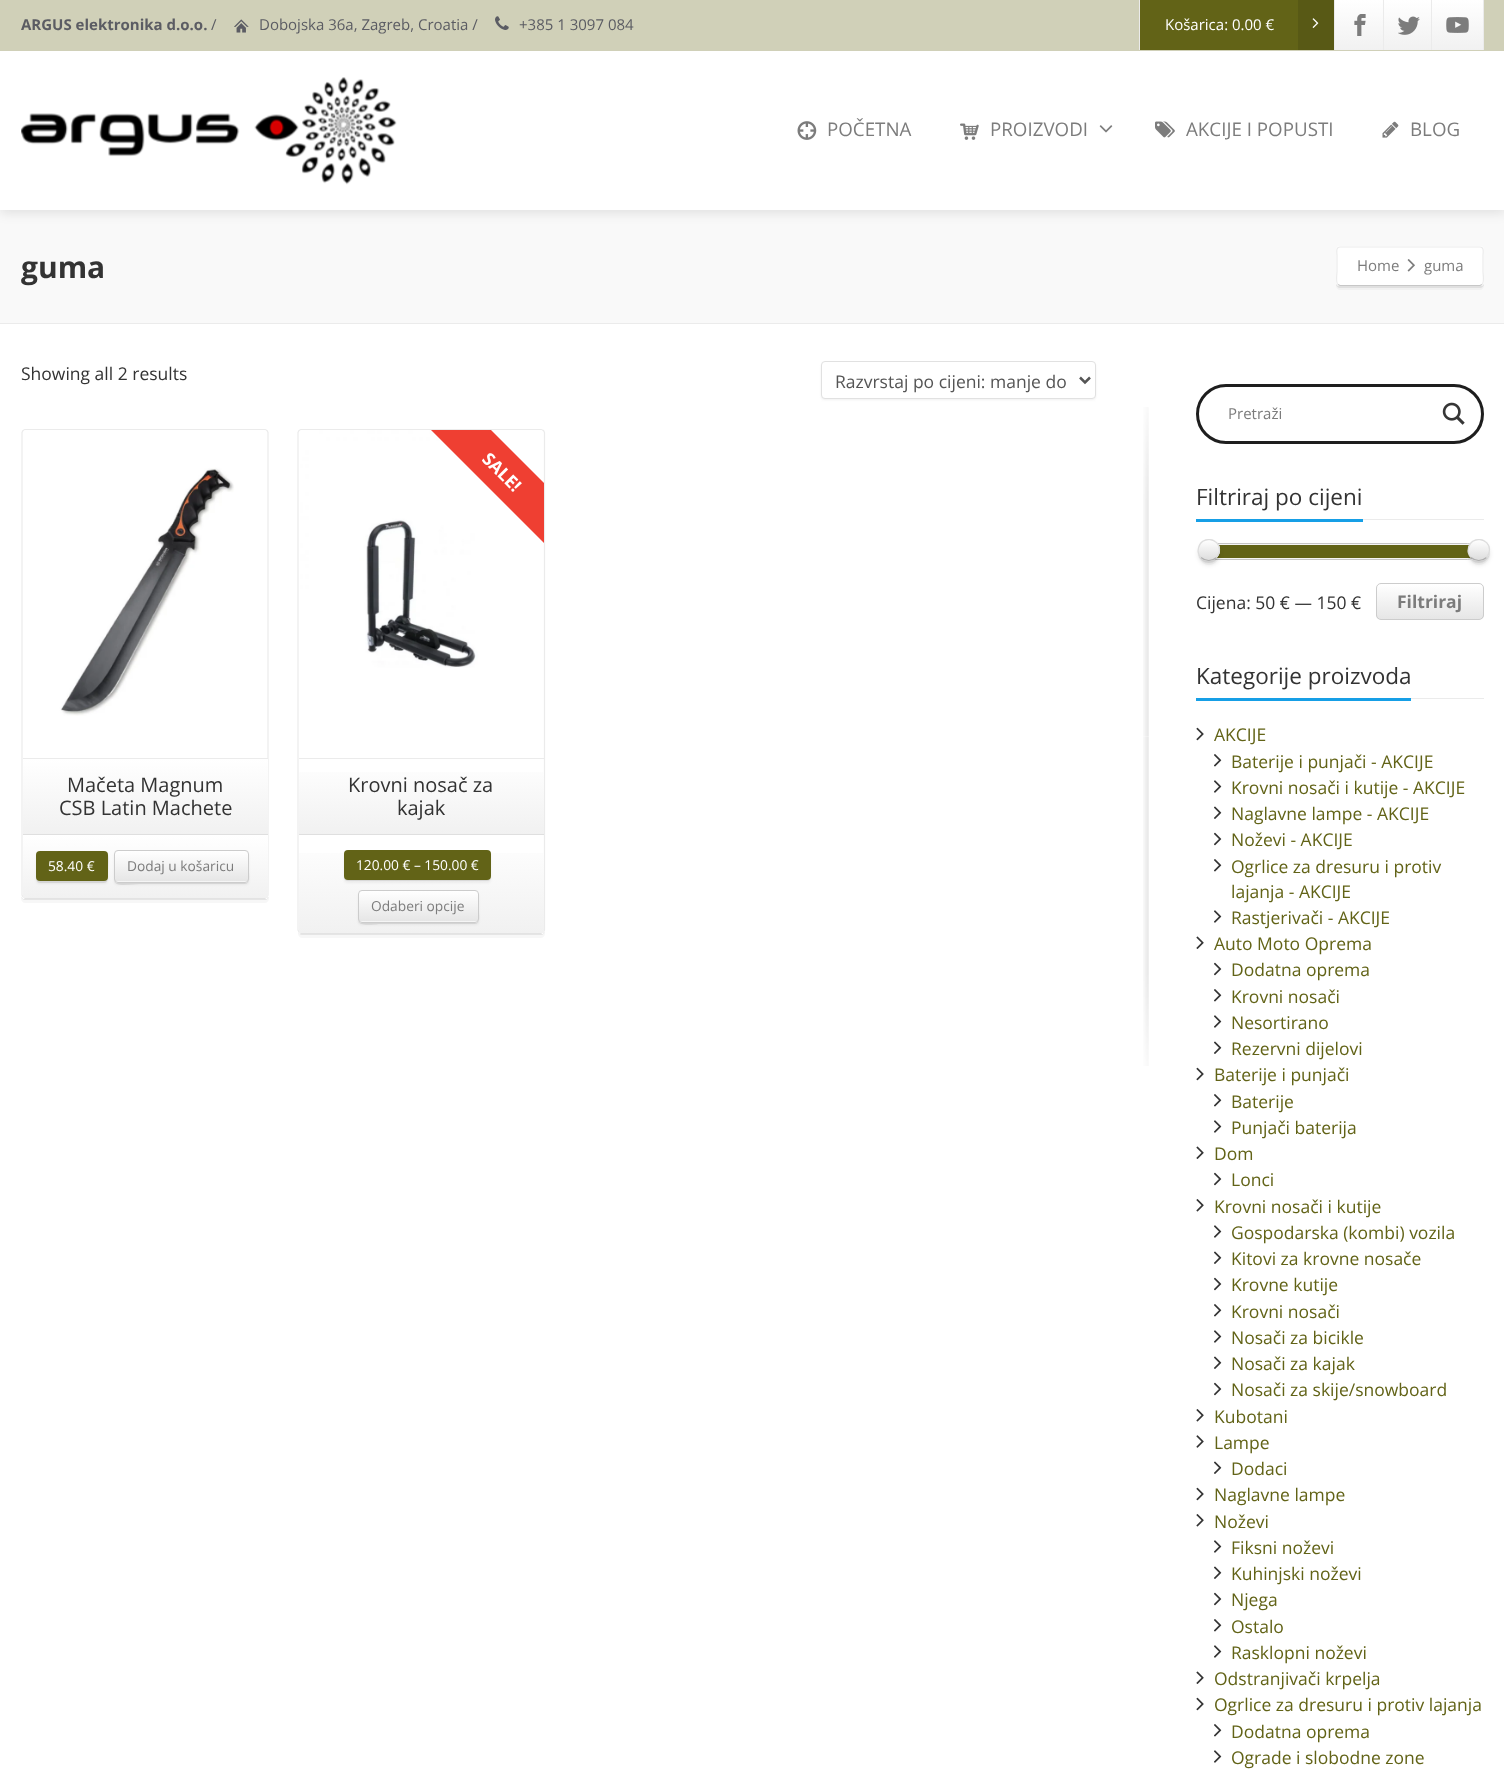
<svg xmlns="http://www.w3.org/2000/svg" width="1504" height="1770">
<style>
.a{font:bold 15px Open Sans;fill:#5b5c63}
.b{font:15px Open Sans;fill:#5b5c63}
.c{font:15px Open Sans;fill:#fff}
.d{font:18.75px Open Sans;fill:#7c7c7c}
.e{font:bold 30px Open Sans;fill:#333}
.f{font:15px Open Sans;fill:#7c7c7c}
.g{font:17.5px Open Sans;fill:#333}
.h{font:17.5px Open Sans;fill:#555}
.i{font:20px Open Sans;fill:#333}
.j{font:13.75px Open Sans;fill:#fff}
.k{font:13.75px Open Sans;fill:#7c7c7c}
.l{font:bold 17.5px Open Sans;fill:#fff}
.m{font:22.5px Open Sans;fill:#333}
.n{font:bold 17.5px Open Sans;fill:#7c7c7c}
.o{font:17.5px Open Sans;fill:#626317}
</style>
<defs>
<linearGradient id="g1" gradientUnits="userSpaceOnUse" x1="1360" y1="0" x2="1360" y2="50"><stop offset="0" stop-color="#fff"/><stop offset="1" stop-color="#f1f1f1"/></linearGradient>
<linearGradient id="g2" gradientUnits="userSpaceOnUse" x1="1409" y1="0" x2="1409" y2="50"><stop offset="0" stop-color="#fff"/><stop offset="1" stop-color="#f1f1f1"/></linearGradient>
<linearGradient id="g3" gradientUnits="userSpaceOnUse" x1="1458" y1="0" x2="1458" y2="50"><stop offset="0" stop-color="#fff"/><stop offset="1" stop-color="#f1f1f1"/></linearGradient>
<linearGradient id="g4" gradientUnits="userSpaceOnUse" x1="145" y1="759" x2="145" y2="834"><stop offset="0" stop-color="#fff"/><stop offset="1" stop-color="#f1f1f1"/></linearGradient>
<linearGradient id="g5" gradientUnits="userSpaceOnUse" x1="145" y1="835" x2="145" y2="898"><stop offset="0" stop-color="#fff"/><stop offset="1" stop-color="#f1f1f1"/></linearGradient>
<clipPath id="clip1"><rect x="114" y="850" width="135" height="33" rx="4"/></clipPath>
<linearGradient id="g6" gradientUnits="userSpaceOnUse" x1="181" y1="851" x2="181" y2="881"><stop offset="0" stop-color="#fff"/><stop offset="1" stop-color="#e6e6e6"/></linearGradient>
<clipPath id="clip2"><path d="M299 430h245v328H299z"/></clipPath>
<linearGradient id="g7" gradientUnits="userSpaceOnUse" x1="421" y1="759" x2="421" y2="834"><stop offset="0" stop-color="#fff"/><stop offset="1" stop-color="#f1f1f1"/></linearGradient>
<linearGradient id="g8" gradientUnits="userSpaceOnUse" x1="421" y1="835" x2="421" y2="933"><stop offset="0" stop-color="#fff"/><stop offset="1" stop-color="#f1f1f1"/></linearGradient>
<clipPath id="clip3"><rect x="358" y="890" width="121" height="33" rx="4"/></clipPath>
<linearGradient id="g9" gradientUnits="userSpaceOnUse" x1="418" y1="891" x2="418" y2="921"><stop offset="0" stop-color="#fff"/><stop offset="1" stop-color="#e6e6e6"/></linearGradient>
<clipPath id="clip4"><rect x="1198" y="539" width="22" height="22" rx="11"/></clipPath>
<linearGradient id="g10" gradientUnits="userSpaceOnUse" x1="1209" y1="540" x2="1209" y2="560"><stop offset="0" stop-color="#fff"/><stop offset="1" stop-color="#ddd"/></linearGradient>
<clipPath id="clip5"><rect x="1468" y="539" width="22" height="22" rx="11"/></clipPath>
<linearGradient id="g11" gradientUnits="userSpaceOnUse" x1="1479" y1="540" x2="1479" y2="560"><stop offset="0" stop-color="#fff"/><stop offset="1" stop-color="#ddd"/></linearGradient>
<clipPath id="clip6"><rect x="1376" y="583" width="108" height="37" rx="5"/></clipPath>
<linearGradient id="g12" gradientUnits="userSpaceOnUse" x1="1430" y1="584" x2="1430" y2="619"><stop offset="0" stop-color="#fff"/><stop offset="1" stop-color="#e6e6e6"/></linearGradient>
</defs>
<rect width="100%" height="100%" fill="#fff"/>
<path fill="#f9f9f9" d="M0 210h1504v113H0z"/>
<path fill="#0000001a" filter="blur(6px)" d="M0 54h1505v159H0z"/>
<path fill="#d0d0b8" d="M0 0h1504v51H0z"/>
<image href="1.png" x="234" y="19" width="15" height="14"/>
<image href="2.png" x="495" y="16" width="14" height="14"/>
<path fill="#ebebeb" d="M1139 0h1v50H1139z"/>
<path fill="#626317" d="M1140 0h158v50H1140z"/>
<path fill="#585915" d="M1298 0h36v50H1298z"/>
<image href="3.png" x="1312" y="18" width="7" height="10"/>
<path fill="url(#g1)" d="M1335 0h48v50H1335z"/>
<path fill="#ebebeb" d="M1334 0h1v50H1334z"/>
<image href="4.png" x="1354" y="14" width="12" height="22"/>
<path fill="url(#g2)" d="M1384 0h47v50H1384z"/>
<path fill="#ebebeb" d="M1383 0h1v50H1383z"/>
<image href="5.png" x="1398" y="16" width="22" height="19"/>
<path fill="url(#g3)" d="M1432 0h51v50H1432z"/>
<path fill="#ebebeb" d="M1483 0h1v50H1483z"/>
<path fill="#ebebeb" d="M1431 0h1v50H1431z"/>
<image href="6.png" x="1446" y="17" width="23" height="16"/>
<path fill="#fff" d="M0 51h1504v159H0z"/>
<image href="7.png" x="21" y="77" width="376" height="108"/>
<image href="8.png" x="797" y="121" width="20" height="19"/>
<image href="9.png" x="960" y="123" width="19" height="17"/>
<image href="10.png" x="1099" y="125" width="14" height="8"/>
<image href="11.png" x="1155" y="121" width="20" height="17"/>
<image href="12.png" x="1382" y="121" width="17" height="17"/>
<path fill="#ebebeb" d="M0 323h1504v1H0z"/>
<path fill="#e8e8e8" d="M1336 251v33c0 2 2 4 4 4h140c2 0 4-2 4-4v-33v31c0 3-2 4-4 4h-140c-2 0-4-1-4-4z"/>
<path fill="#00000008" d="M1336 253v33c0 2 2 4 4 4h140c2 0 4-2 4-4v-33v29c0 3-2 4-4 4h-140c-2 0-4-1-4-4z"/>
<rect fill="#fff" x="1336" y="246" width="148" height="40" rx="4"/>
<path fill="none" stroke="#c7c7c7" stroke-width="1.2" d="M1482 284.5l-2 1h-140l-2-1"/>
<path fill="none" stroke="#ebebeb" stroke-width="1.2" d="M1338 284.5c-2.5-2-1-10.5-1-13v-16c0-2.5-1.5-8.5 3-8.5h140c4.5 0 3 6 3 8.5v16c0 2.5 1.5 11-1 13"/>
<image href="13.png" x="1407" y="259" width="8" height="13"/>
<rect fill="#b4b4b433" filter="blur(1px)" x="821" y="363" width="275" height="37" rx="4"/>
<rect fill="#fff" stroke="#e1e1e1" x="821.5" y="361.5" width="274" height="37" rx="3.5"/>
<path fill="none" stroke="#555" stroke-width="2.5" d="M1080 377.5l5 5l5-5"/>
<path fill="#ededed" d="M21 433v463c0 2 2 4 4 4h240c2 0 4-2 4-4v-463v462c0 2-2 4-4 4h-240c-2 0-4-2-4-4z"/>
<path fill="#00000008" d="M21 436v463c0 2 2 4 4 4h240c2 0 4-2 4-4v-463v459c0 2-2 4-4 4h-240c-2 0-4-2-4-4z"/>
<rect fill="#fff" x="21" y="429" width="248" height="470" rx="4"/>
<path fill="none" stroke="#c7c7c7" stroke-width="1.2" d="M267 897l-2 1h-240l-2-1"/>
<path fill="none" stroke="#ebebeb" stroke-width="1.2" d="M23 897l-1-2v-462.5l1-2l2-1h240l2 1l1 2v462.5l-1 2"/>
<path fill="#ebebeb" d="M23 758h245v1H23z"/>
<image href="14.png" x="24" y="430" width="242" height="286"/>
<path fill="url(#g4)" d="M23 759h245v75H23z"/>
<path fill="url(#g5)" d="M23 835h245v63H23z"/>
<path fill="#dfdfdf" d="M23 834h245v1H23z"/>
<path fill="#e1e1e1" d="M36 856v16c0 13 0 11 15 11h42c15 0 15 2 15-11c0-4 1-14 0-17v23c0 2-2 3-4 3h-64c-2 0-4-1-4-3z"/>
<rect fill="#0000000d" filter="blur(1px)" x="36" y="854" width="72" height="30" rx="4"/>
<rect fill="#626317" x="36" y="851" width="72" height="30" rx="4"/>
<path fill="#e0e0e0" d="M114 880c0 8 18 4 25 4h106c6 0 4-9 4-12v-18v21c0 2 0 7-4 7h-128c-1 0-3-1-3-2z"/>
<rect fill="#0000000d" filter="blur(1px)" x="114" y="853" width="135" height="32" rx="4"/>
<rect fill="#f5f5f5" x="114" y="850" width="135" height="33" rx="4"/>
<g clip-path="url(#clip1)">
<path fill="url(#g6)" d="M114 851h135v30H114z"/>
</g>
<rect fill="none" stroke="#ccc" x="114.5" y="850.5" width="134" height="32" rx="3.5"/>
<path fill="#ededed" d="M298 932c1 2 2 3 4 3h239c2 0 4-2 4-4v-1c0 2-2 4-4 4h-240c-1 0-2-1-3-2z"/>
<path fill="#00000008" d="M298 932v2c0 2 2 4 4 4h239c2 0 4-2 4-4v-4c0 2-2 4-4 4h-240c-1 0-2-1-3-2z"/>
<rect fill="#fff" x="298" y="429" width="247" height="505" rx="4"/>
<path fill="none" stroke="#c7c7c7" stroke-width="1.2" d="M543.5 932l-2.5 1h-240l-2-1"/>
<path fill="none" stroke="#ebebeb" stroke-width="1.2" d="M299 932l-1-2v-497.5l1-2l2-1h240l2.5 1l1 2v497.5l-1 2"/>
<path fill="#ebebeb" d="M299 758h245v1H299z"/>
<image href="15.png" x="300" y="430" width="242" height="238"/>
<g clip-path="url(#clip2)">
<path fill="#ef3f32" d="M461 400l113 113l-30 30l-113-113z"/>
</g>
<path fill="url(#g7)" d="M299 772h245v62H299z"/>
<path fill="url(#g8)" d="M299 853h245v80H299z"/>
<path fill="#dfdfdf" d="M299 834h245v1H299z"/>
<path fill="#e5e5e5" d="M344 878c0 2 2 3 4 3h139c2 0 4-1 4-3c-1 1-2 2-3 2h-140c-2 0-3-1-4-2z"/>
<rect fill="#0000000d" filter="blur(1px)" x="344" y="853" width="147" height="30" rx="4"/>
<rect fill="#626317" x="344" y="850" width="147" height="30" rx="4"/>
<path fill="#dfdfdf" d="M358 921c1 6 18 3 23 3h94c6 0 4-9 4-12v-18v25c0 2-2 3-4 3h-114c-1 0-2 0-3-1z"/>
<rect fill="#0000000d" filter="blur(1px)" x="358" y="893" width="121" height="32" rx="4"/>
<rect fill="#f5f5f5" x="358" y="890" width="121" height="33" rx="4"/>
<g clip-path="url(#clip3)">
<path fill="url(#g9)" d="M358 891h121v30H358z"/>
</g>
<rect fill="none" stroke="#ccc" x="358.5" y="890.5" width="120" height="32" rx="3.5"/>
<image href="16.png" x="1143" y="407" width="6" height="329"/>
<image href="17.png" x="1143" y="736" width="6" height="330"/>
<rect fill="none" stroke="#1e1e1e" stroke-width="3" x="1197.5" y="385.5" width="285" height="57" rx="28.5"/>
<image href="18.png" x="1442" y="402" width="23" height="23"/>
<path fill="#ebebeb" d="M1363 519h121v1H1363z"/>
<path fill="#169fe6" d="M1196 519h167v3H1196z"/>
<rect fill="#f5f5f5" stroke="#c5c5c5" x="1204.5" y="543.5" width="271" height="16" rx="8"/>
<path fill="#626317" d="M1216 545h256v13H1216z"/>
<rect fill="#0000001a" filter="blur(2px)" x="1198" y="543" width="22" height="22" rx="11"/>
<path fill="#00000012" d="M1220 550.5c-.5 12.5-18 14.5-22 3c2.5 14 22.5 12 22-3z"/>
<path fill="#00000008" d="M1198 553.5c0 2.5 .5 4.5 2 6.5c6.5 10 22 3.5 20-8c-2 11.5-18.5 12.5-22 1.5z"/>
<circle fill="#ddd" cx="1209" cy="550" r="11"/>
<g clip-path="url(#clip4)">
<path fill="url(#g10)" d="M1198 540h22v20H1198z"/>
</g>
<path fill="none" stroke="#00000038" stroke-width="1.2" d="M1216.5 557.5c-4.5 4-11 4-15.5 0"/>
<path fill="none" stroke="#ddd" stroke-width="1.2" d="M1201 557.5c-2.5-2.5-3.5-6-2.5-9.5c2.5-12.5 21-10.5 21 2c0 3-1.5 5.5-3 7.5"/>
<rect fill="#0000001a" filter="blur(2px)" x="1468" y="543" width="22" height="22" rx="11"/>
<path fill="#00000012" d="M1490 550.5c-.5 12.5-18 14.5-22 3c2.5 14 22.5 12 22-3z"/>
<path fill="#00000008" d="M1468 553.5c0 2.5 .5 4.5 2 6.5c6.5 10 22 3.5 20-8c-2 11.5-18.5 12.5-22 1.5z"/>
<circle fill="#ddd" cx="1479" cy="550" r="11"/>
<g clip-path="url(#clip5)">
<path fill="url(#g11)" d="M1468 540h22v20H1468z"/>
</g>
<path fill="none" stroke="#00000038" stroke-width="1.2" d="M1486.5 557.5c-4.5 4-11 4-15.5 0"/>
<path fill="none" stroke="#ddd" stroke-width="1.2" d="M1471 557.5c-2.5-2.5-3.5-6-2.5-9.5c2.5-12.5 21-10.5 21 2c0 3-1.5 5.5-3 7.5"/>
<g clip-path="url(#clip6)">
<path fill="url(#g12)" d="M1376 584h108v35H1376z"/>
</g>
<rect fill="none" stroke="#ccc" x="1376.5" y="583.5" width="107" height="36" rx="4.5"/>
<path fill="#ebebeb" d="M1411 698h73v1H1411z"/>
<path fill="#169fe6" d="M1196 698h215v3H1196z"/>
<image href="19.png" x="1196" y="727" width="8" height="14"/>
<image href="20.png" x="1214" y="754" width="8" height="13"/>
<image href="21.png" x="1214" y="780" width="8" height="13"/>
<image href="22.png" x="1214" y="806" width="8" height="13"/>
<image href="23.png" x="1214" y="832" width="8" height="14"/>
<image href="20.png" x="1214" y="859" width="8" height="13"/>
<image href="21.png" x="1214" y="910" width="8" height="13"/>
<image href="24.png" x="1196" y="936" width="8" height="13"/>
<image href="23.png" x="1214" y="962" width="8" height="14"/>
<image href="20.png" x="1214" y="989" width="8" height="13"/>
<image href="21.png" x="1214" y="1015" width="8" height="13"/>
<image href="22.png" x="1214" y="1041" width="8" height="13"/>
<image href="19.png" x="1196" y="1067" width="8" height="14"/>
<image href="20.png" x="1214" y="1094" width="8" height="13"/>
<image href="21.png" x="1214" y="1120" width="8" height="13"/>
<image href="24.png" x="1196" y="1146" width="8" height="13"/>
<image href="23.png" x="1214" y="1172" width="8" height="14"/>
<image href="25.png" x="1196" y="1199" width="8" height="13"/>
<image href="21.png" x="1214" y="1225" width="8" height="13"/>
<image href="22.png" x="1214" y="1251" width="8" height="13"/>
<image href="23.png" x="1214" y="1277" width="8" height="14"/>
<image href="20.png" x="1214" y="1304" width="8" height="13"/>
<image href="21.png" x="1214" y="1330" width="8" height="13"/>
<image href="22.png" x="1214" y="1356" width="8" height="13"/>
<image href="23.png" x="1214" y="1382" width="8" height="14"/>
<image href="25.png" x="1196" y="1409" width="8" height="13"/>
<image href="26.png" x="1196" y="1435" width="8" height="13"/>
<image href="22.png" x="1214" y="1461" width="8" height="13"/>
<image href="19.png" x="1196" y="1487" width="8" height="14"/>
<image href="25.png" x="1196" y="1514" width="8" height="13"/>
<image href="21.png" x="1214" y="1540" width="8" height="13"/>
<image href="22.png" x="1214" y="1566" width="8" height="13"/>
<image href="23.png" x="1214" y="1592" width="8" height="14"/>
<image href="20.png" x="1214" y="1619" width="8" height="13"/>
<image href="21.png" x="1214" y="1645" width="8" height="13"/>
<image href="24.png" x="1196" y="1671" width="8" height="13"/>
<image href="19.png" x="1196" y="1697" width="8" height="14"/>
<image href="20.png" x="1214" y="1724" width="8" height="13"/>
<image href="21.png" x="1214" y="1750" width="8" height="13"/>
<text class="a" x="21" y="30">ARGUS elektronika d.o.o.</text>
<text class="b" x="211" y="30">/</text>
<text class="b" x="259" y="30">Dobojska 36a, Zagreb, Croatia /</text>
<text class="b" x="519" y="30">+385 1 3097 084</text>
<text class="c" x="1165" y="30">Košarica: 0.00 €</text>
<text class="d" x="827" y="136">POČETNA</text>
<text class="d" x="990" y="136">PROIZVODI</text>
<text class="d" x="1186" y="136">AKCIJE I POPUSTI</text>
<text class="d" x="1410" y="136">BLOG</text>
<text class="e" x="21" y="278">guma</text>
<text class="f" x="1357" y="271">Home</text>
<text class="f" x="1424" y="271">guma</text>
<text class="g" x="21" y="380">Showing all 2 results</text>
<text class="h" x="835" y="388">Razvrstaj po cijeni: manje do</text>
<text class="i" x="67" y="792">Mačeta Magnum</text>
<text class="i" x="59" y="815">CSB Latin Machete</text>
<text class="j" x="48" y="871">58.40 €</text>
<text class="k" x="127" y="871">Dodaj u košaricu</text>
<text class="l" x="481" y="460" transform="rotate(45 481 460)">SALE!</text>
<text class="i" x="348" y="792">Krovni nosač za</text>
<text class="i" x="397" y="815">kajak</text>
<text class="j" x="356" y="870">120.00 € – 150.00 €</text>
<text class="k" x="371" y="911">Odaberi opcije</text>
<text class="f" x="1228" y="419">Pretraži</text>
<text class="m" x="1196" y="505">Filtriraj po cijeni</text>
<text class="g" x="1196" y="609">Cijena: 50 € — 150 €</text>
<text class="n" x="1397" y="608">Filtriraj</text>
<text class="m" x="1196" y="684">Kategorije proizvoda</text>
<text class="o" x="1214" y="741">AKCIJE</text>
<text class="o" x="1231" y="768">Baterije i punjači - AKCIJE</text>
<text class="o" x="1231" y="794">Krovni nosači i kutije - AKCIJE</text>
<text class="o" x="1231" y="820">Naglavne lampe - AKCIJE</text>
<text class="o" x="1231" y="846">Noževi - AKCIJE</text>
<text class="o" x="1231" y="873">Ogrlice za dresuru i protiv</text>
<text class="o" x="1231" y="898">lajanja - AKCIJE</text>
<text class="o" x="1231" y="924">Rastjerivači - AKCIJE</text>
<text class="o" x="1214" y="950">Auto Moto Oprema</text>
<text class="o" x="1231" y="976">Dodatna oprema</text>
<text class="o" x="1231" y="1003">Krovni nosači</text>
<text class="o" x="1231" y="1029">Nesortirano</text>
<text class="o" x="1231" y="1055">Rezervni dijelovi</text>
<text class="o" x="1214" y="1081">Baterije i punjači</text>
<text class="o" x="1231" y="1108">Baterije</text>
<text class="o" x="1231" y="1134">Punjači baterija</text>
<text class="o" x="1214" y="1160">Dom</text>
<text class="o" x="1231" y="1186">Lonci</text>
<text class="o" x="1214" y="1213">Krovni nosači i kutije</text>
<text class="o" x="1231" y="1239">Gospodarska (kombi) vozila</text>
<text class="o" x="1231" y="1265">Kitovi za krovne nosače</text>
<text class="o" x="1231" y="1291">Krovne kutije</text>
<text class="o" x="1231" y="1318">Krovni nosači</text>
<text class="o" x="1231" y="1344">Nosači za bicikle</text>
<text class="o" x="1231" y="1370">Nosači za kajak</text>
<text class="o" x="1231" y="1396">Nosači za skije/snowboard</text>
<text class="o" x="1214" y="1423">Kubotani</text>
<text class="o" x="1214" y="1449">Lampe</text>
<text class="o" x="1231" y="1475">Dodaci</text>
<text class="o" x="1214" y="1501">Naglavne lampe</text>
<text class="o" x="1214" y="1528">Noževi</text>
<text class="o" x="1231" y="1554">Fiksni noževi</text>
<text class="o" x="1231" y="1580">Kuhinjski noževi</text>
<text class="o" x="1231" y="1606">Njega</text>
<text class="o" x="1231" y="1633">Ostalo</text>
<text class="o" x="1231" y="1659">Rasklopni noževi</text>
<text class="o" x="1214" y="1685">Odstranjivači krpelja</text>
<text class="o" x="1214" y="1711">Ogrlice za dresuru i protiv lajanja</text>
<text class="o" x="1231" y="1738">Dodatna oprema</text>
<text class="o" x="1231" y="1764">Ograde i slobodne zone</text>
</svg>
